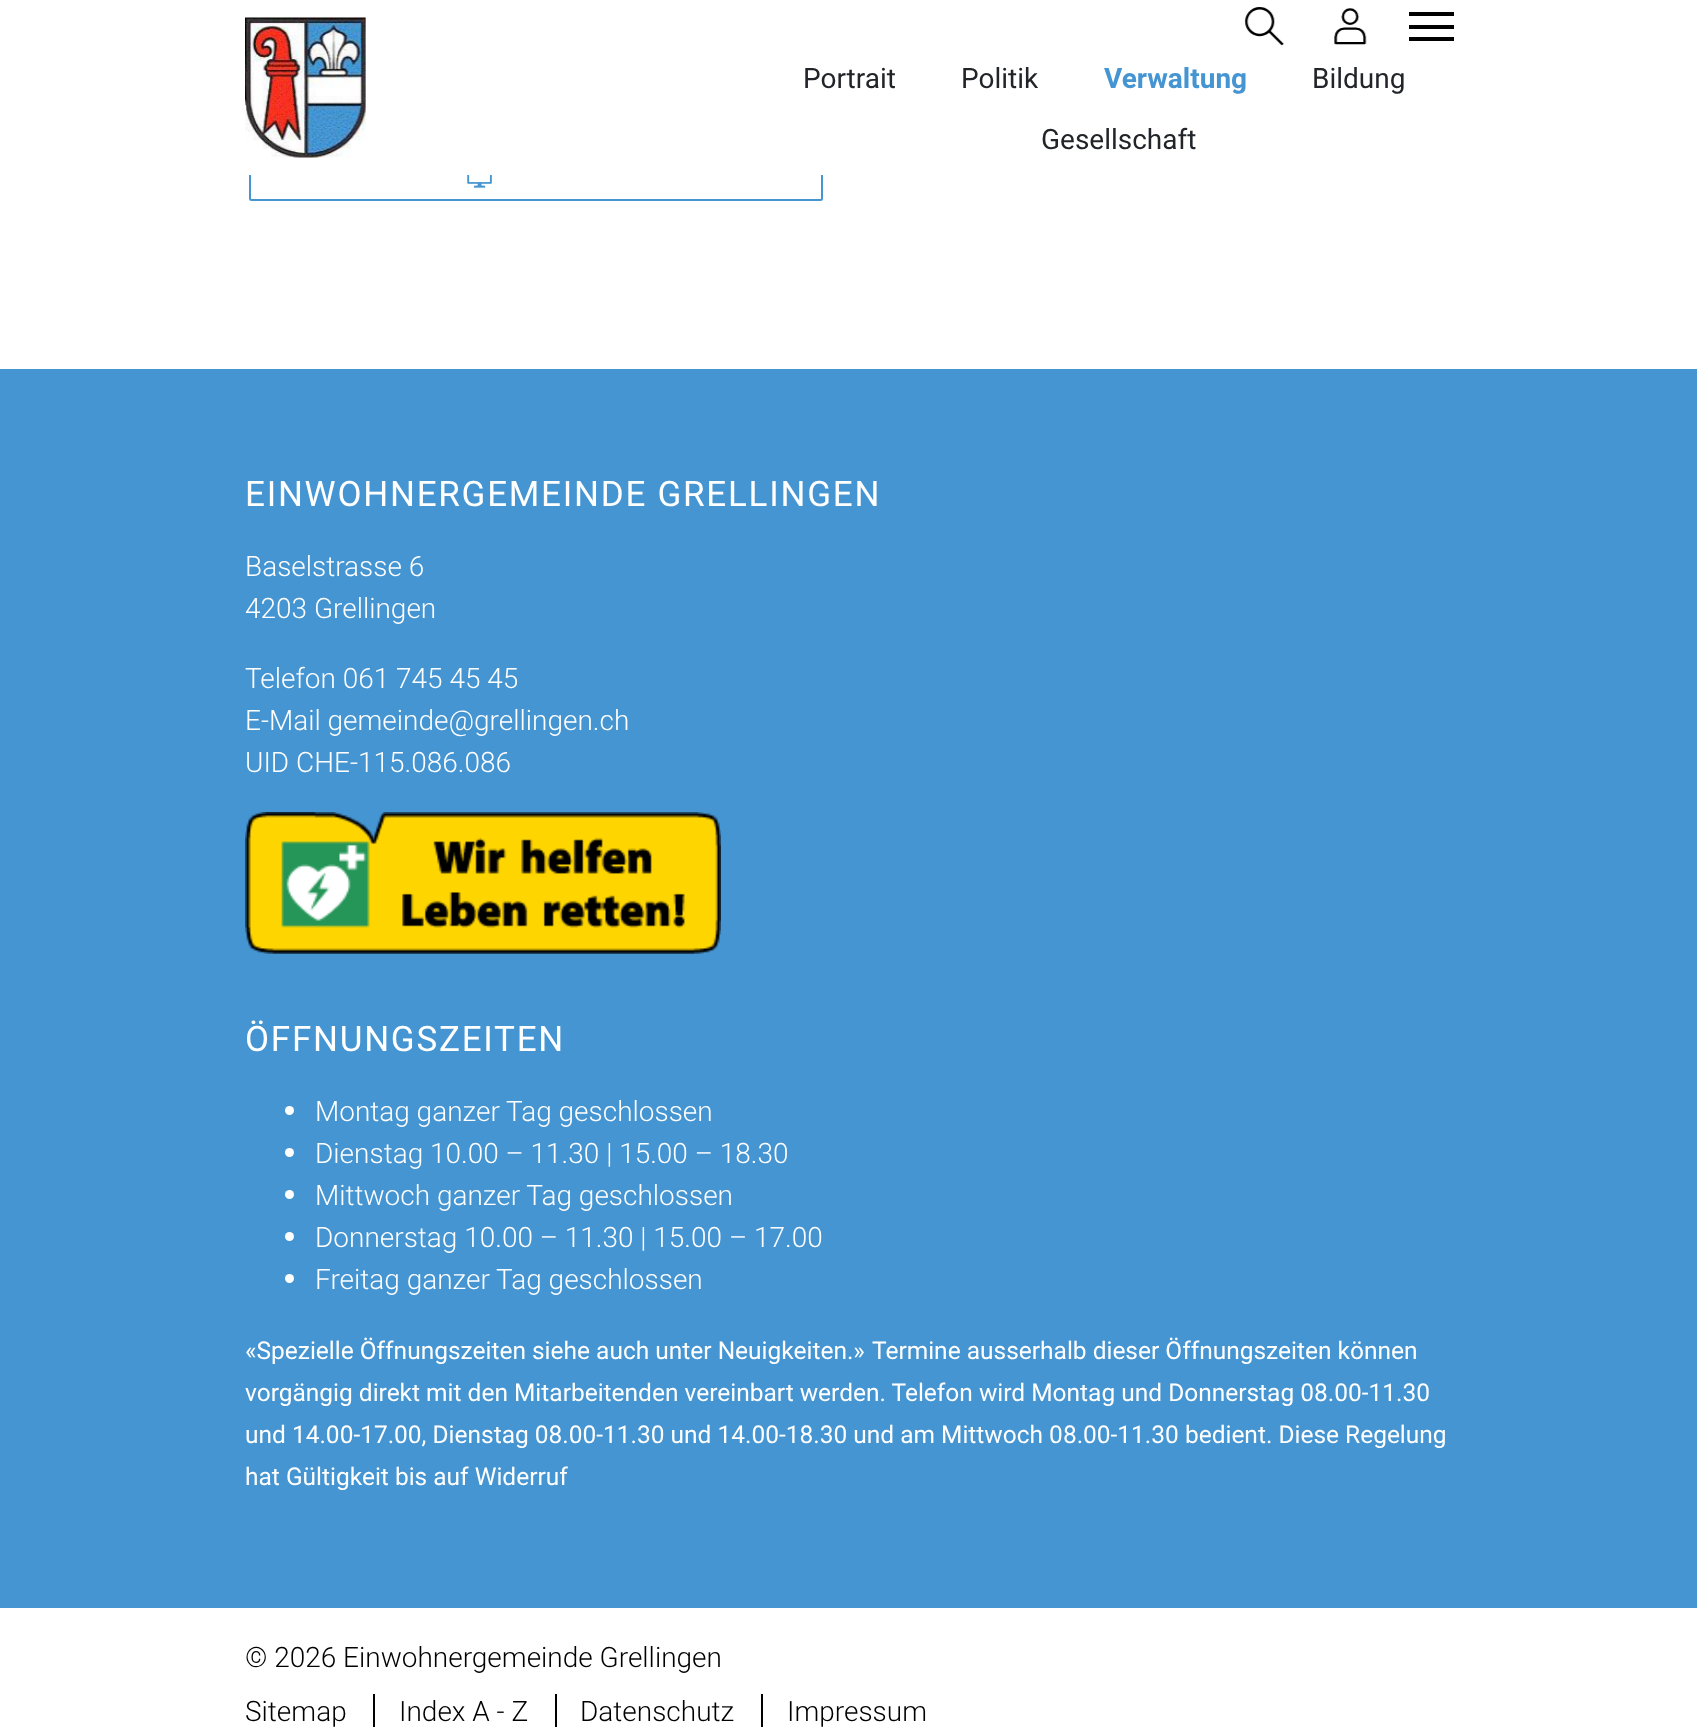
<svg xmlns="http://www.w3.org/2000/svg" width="1697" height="1730">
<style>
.a{font:28px Roboto;fill:#212529}
.b{font:bold 28px Roboto;fill:#4595d2}
.c{font:35px Roboto;letter-spacing:1.75px;fill:#fff}
.d{font:300 28px Roboto;fill:#fff}
.e{font:24.5px Roboto;fill:#fff}
.f{font:300 28px Roboto;fill:#000}
</style>
<rect width="100%" height="100%" fill="#fff"/>
<rect fill="none" stroke="#4595d2" stroke-width="2" x="250" y="148" width="572" height="52" rx="1.5"/>
<path fill="#fff" d="M249 147h574v28H249z"/>
<image href="1.png" x="245" y="17" width="121" height="141"/>
<image href="2.png" x="1244" y="7" width="41" height="39"/>
<image href="3.png" x="1334" y="8" width="33" height="37"/>
<path fill="#000" d="M1409 12h45v4H1409z"/>
<path fill="#000" d="M1409 25h45v4H1409z"/>
<path fill="#000" d="M1409 37h45v4H1409z"/>
<image href="4.png" x="467" y="175" width="25" height="13"/>
<path fill="#4595d2" d="M0 369h1697v1239H0z"/>
<image href="5.png" x="245" y="812" width="476" height="142"/>
<circle fill="#fff" cx="289.5" cy="1110.5" r="4.5"/>
<circle fill="#fff" cx="289.5" cy="1152.5" r="4.5"/>
<circle fill="#fff" cx="289.5" cy="1194.5" r="4.5"/>
<circle fill="#fff" cx="289.5" cy="1236.5" r="4.5"/>
<circle fill="#fff" cx="289.5" cy="1278.5" r="4.5"/>
<path fill="#000" d="M373 1694h2v33H373z"/>
<path fill="#000" d="M555 1694h2v33H555z"/>
<path fill="#000" d="M761 1694h2v33H761z"/>
<text class="a" x="803" y="88">Portrait</text>
<text class="a" x="961" y="88">Politik</text>
<text class="b" x="1104" y="88">Verwaltung</text>
<text class="a" x="1312" y="88">Bildung</text>
<text class="a" x="1041" y="149">Gesellschaft</text>
<text class="c" x="245" y="506">EINWOHNERGEMEINDE GRELLINGEN</text>
<text class="d" x="245" y="576">Baselstrasse 6</text>
<text class="d" x="245" y="618">4203 Grellingen</text>
<text class="d" x="245" y="688">Telefon 061 745 45 45</text>
<text class="d" x="245" y="730">E-Mail gemeinde@grellingen.ch</text>
<text class="d" x="245" y="772">UID CHE-115.086.086</text>
<text class="c" x="245" y="1051">ÖFFNUNGSZEITEN</text>
<text class="d" x="315" y="1121">Montag ganzer Tag geschlossen</text>
<text class="d" x="315" y="1163">Dienstag 10.00 – 11.30 | 15.00 – 18.30</text>
<text class="d" x="315" y="1205">Mittwoch ganzer Tag geschlossen</text>
<text class="d" x="315" y="1247">Donnerstag 10.00 – 11.30 | 15.00 – 17.00</text>
<text class="d" x="315" y="1289">Freitag ganzer Tag geschlossen</text>
<text class="e" x="245" y="1359">«Spezielle Öffnungszeiten siehe auch unter Neuigkeiten.»</text>
<text class="e" x="872" y="1359">Termine ausserhalb dieser Öffnungszeiten können</text>
<text class="e" x="245" y="1401">vorgängig direkt mit den Mitarbeitenden vereinbart werden. Telefon wird Montag und Donnerstag 08.00-11.30</text>
<text class="e" x="245" y="1443">und 14.00-17.00, Dienstag 08.00-11.30 und 14.00-18.30 und am Mittwoch 08.00-11.30 bedient. Diese Regelung</text>
<text class="e" x="245" y="1485">hat Gültigkeit bis auf Widerruf</text>
<text class="f" x="245" y="1667">© 2026 Einwohnergemeinde Grellingen</text>
<text class="f" x="245" y="1721">Sitemap</text>
<text class="f" x="399" y="1721">Index A - Z</text>
<text class="f" x="580" y="1721">Datenschutz</text>
<text class="f" x="787" y="1721">Impressum</text>
</svg>
